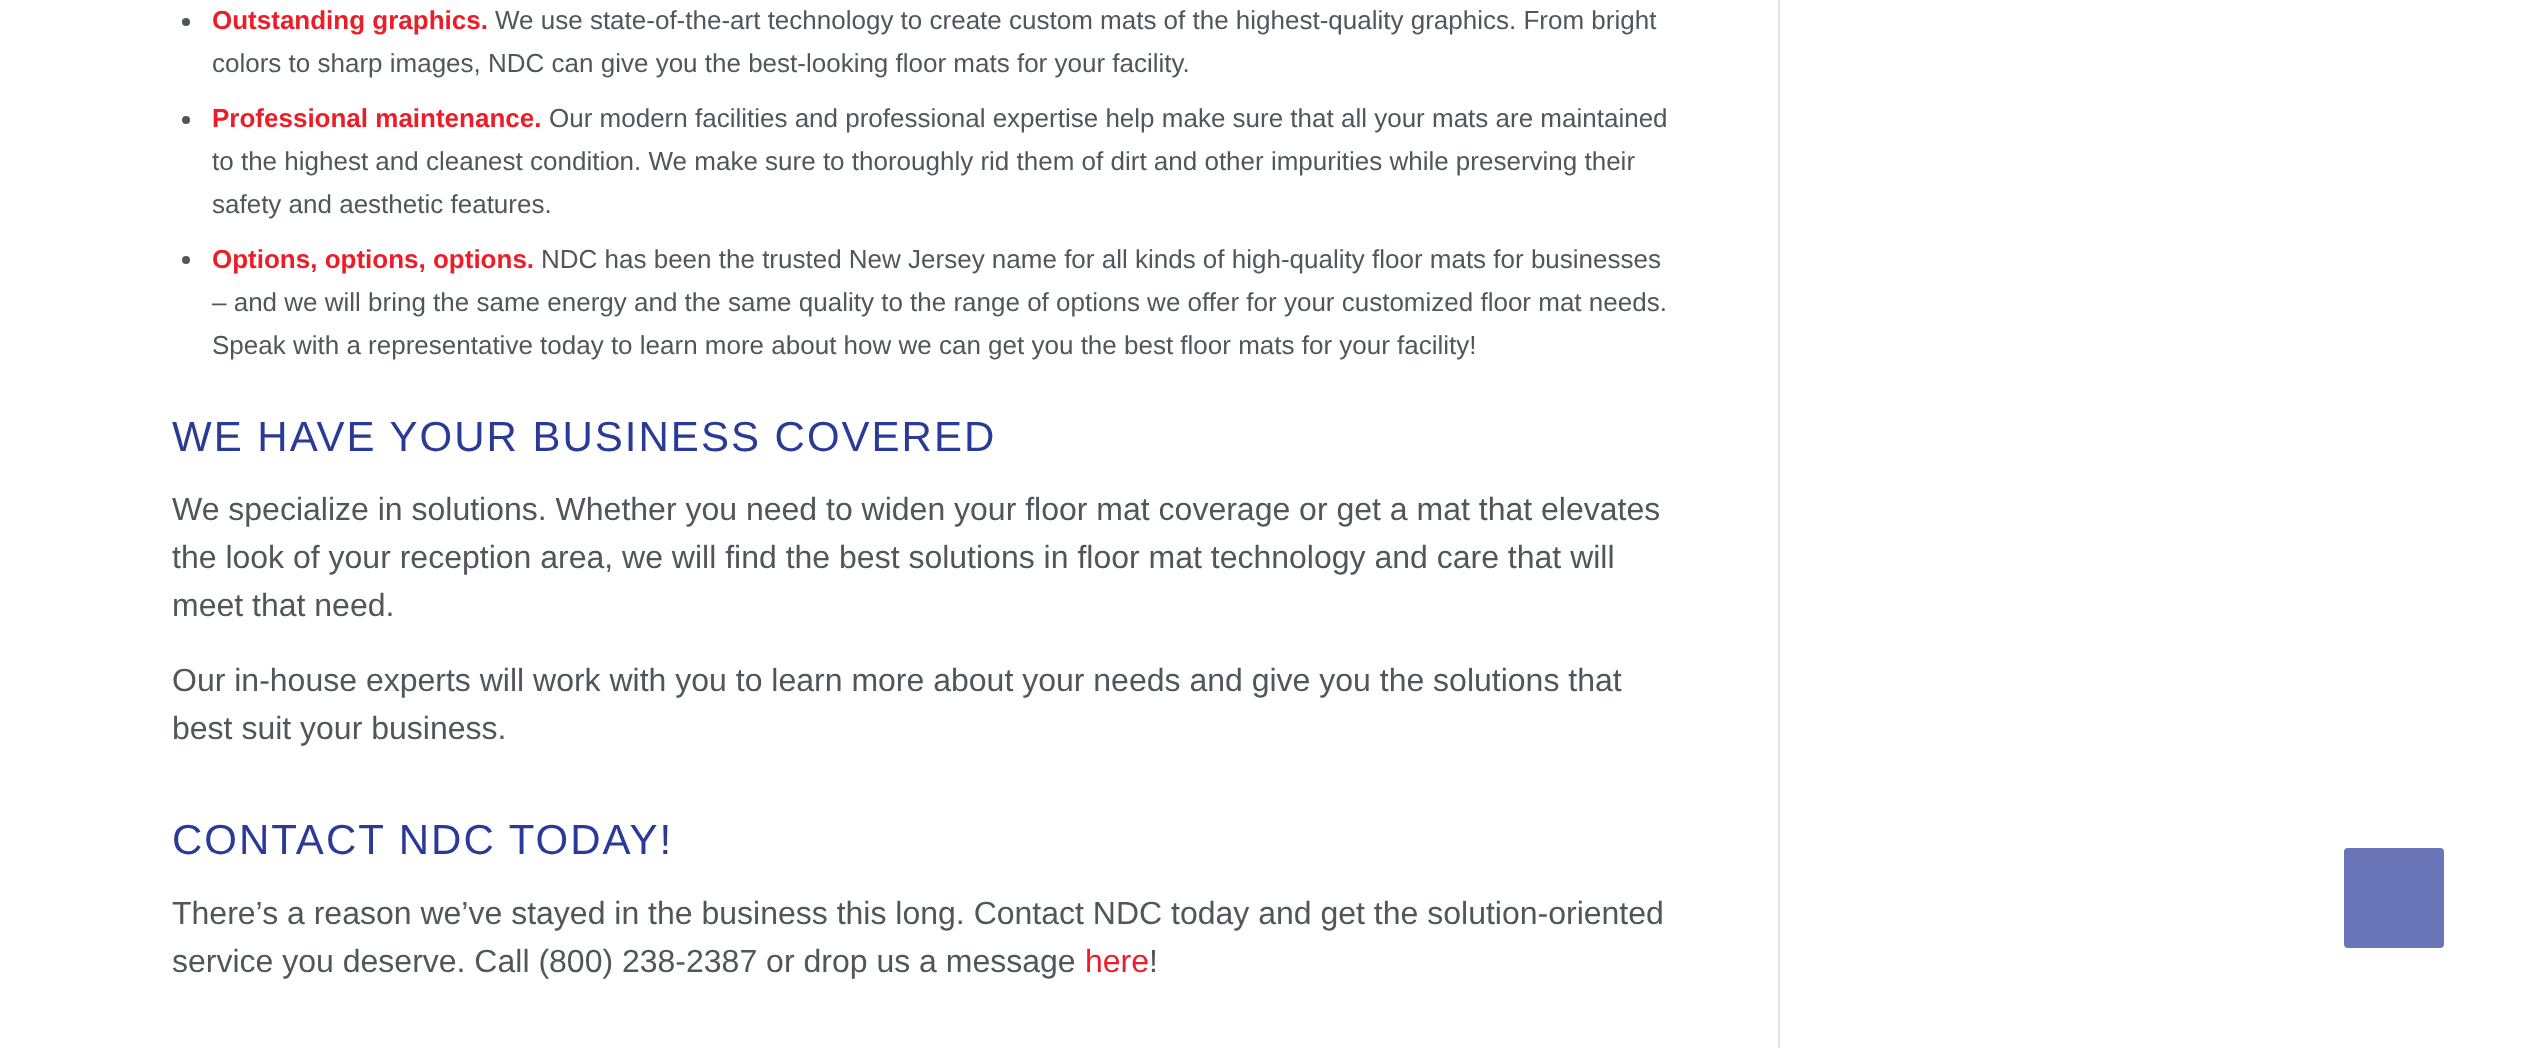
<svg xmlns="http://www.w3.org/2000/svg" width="2544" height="1048">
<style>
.a{font:bold 26px Liberation Sans;fill:#ee1c27}
.b{font:26px Liberation Sans;fill:#4f565c}
.c{font:42px Liberation Sans;letter-spacing:2px;fill:#293a98}
.d{font:32px Liberation Sans;fill:#4f565c}
.e{font:32px Liberation Sans;fill:#ee1c27}
</style>
<rect width="100%" height="100%" fill="#fff"/>
<path fill="#e1e1e1" d="M1778 0h2v1048H1778z"/>
<circle fill="#4f565c" cx="186" cy="22" r="4"/>
<circle fill="#4f565c" cx="186" cy="120" r="4"/>
<circle fill="#4f565c" cx="186" cy="260" r="4"/>
<rect fill="#6975b7" stroke="#6975b7" stroke-width="2" x="2345" y="849" width="98" height="98" rx="3"/>
<text class="a" x="212" y="29">Outstanding graphics.</text>
<text class="b" x="495" y="29">We use state-of-the-art technology to create custom mats of the highest-quality graphics. From bright</text>
<text class="b" x="212" y="72">colors to sharp images, NDC can give you the best-looking floor mats for your facility.</text>
<text class="a" x="212" y="127">Professional maintenance.</text>
<text class="b" x="549" y="127">Our modern facilities and professional expertise help make sure that all your mats are maintained</text>
<text class="b" x="212" y="170">to the highest and cleanest condition. We make sure to thoroughly rid them of dirt and other impurities while preserving their</text>
<text class="b" x="212" y="213">safety and aesthetic features.</text>
<text class="a" x="212" y="268">Options, options, options.</text>
<text class="b" x="541" y="268">NDC has been the trusted New Jersey name for all kinds of high-quality floor mats for businesses</text>
<text class="b" x="212" y="311">– and we will bring the same energy and the same quality to the range of options we offer for your customized floor mat needs.</text>
<text class="b" x="212" y="354">Speak with a representative today to learn more about how we can get you the best floor mats for your facility!</text>
<text class="c" x="172" y="451">WE HAVE YOUR BUSINESS COVERED</text>
<text class="d" x="172" y="520">We specialize in solutions. Whether you need to widen your floor mat coverage or get a mat that elevates</text>
<text class="d" x="172" y="568">the look of your reception area, we will find the best solutions in floor mat technology and care that will</text>
<text class="d" x="172" y="616">meet that need.</text>
<text class="d" x="172" y="691">Our in-house experts will work with you to learn more about your needs and give you the solutions that</text>
<text class="d" x="172" y="739">best suit your business.</text>
<text class="c" x="172" y="854">CONTACT NDC TODAY!</text>
<text class="d" x="172" y="924">There’s a reason we’ve stayed in the business this long. Contact NDC today and get the solution-oriented</text>
<text class="d" x="172" y="972">service you deserve. Call (800) 238-2387 or drop us a message</text>
<text class="e" x="1085" y="972">here</text>
<text class="d" x="1149" y="972">!</text>
</svg>
